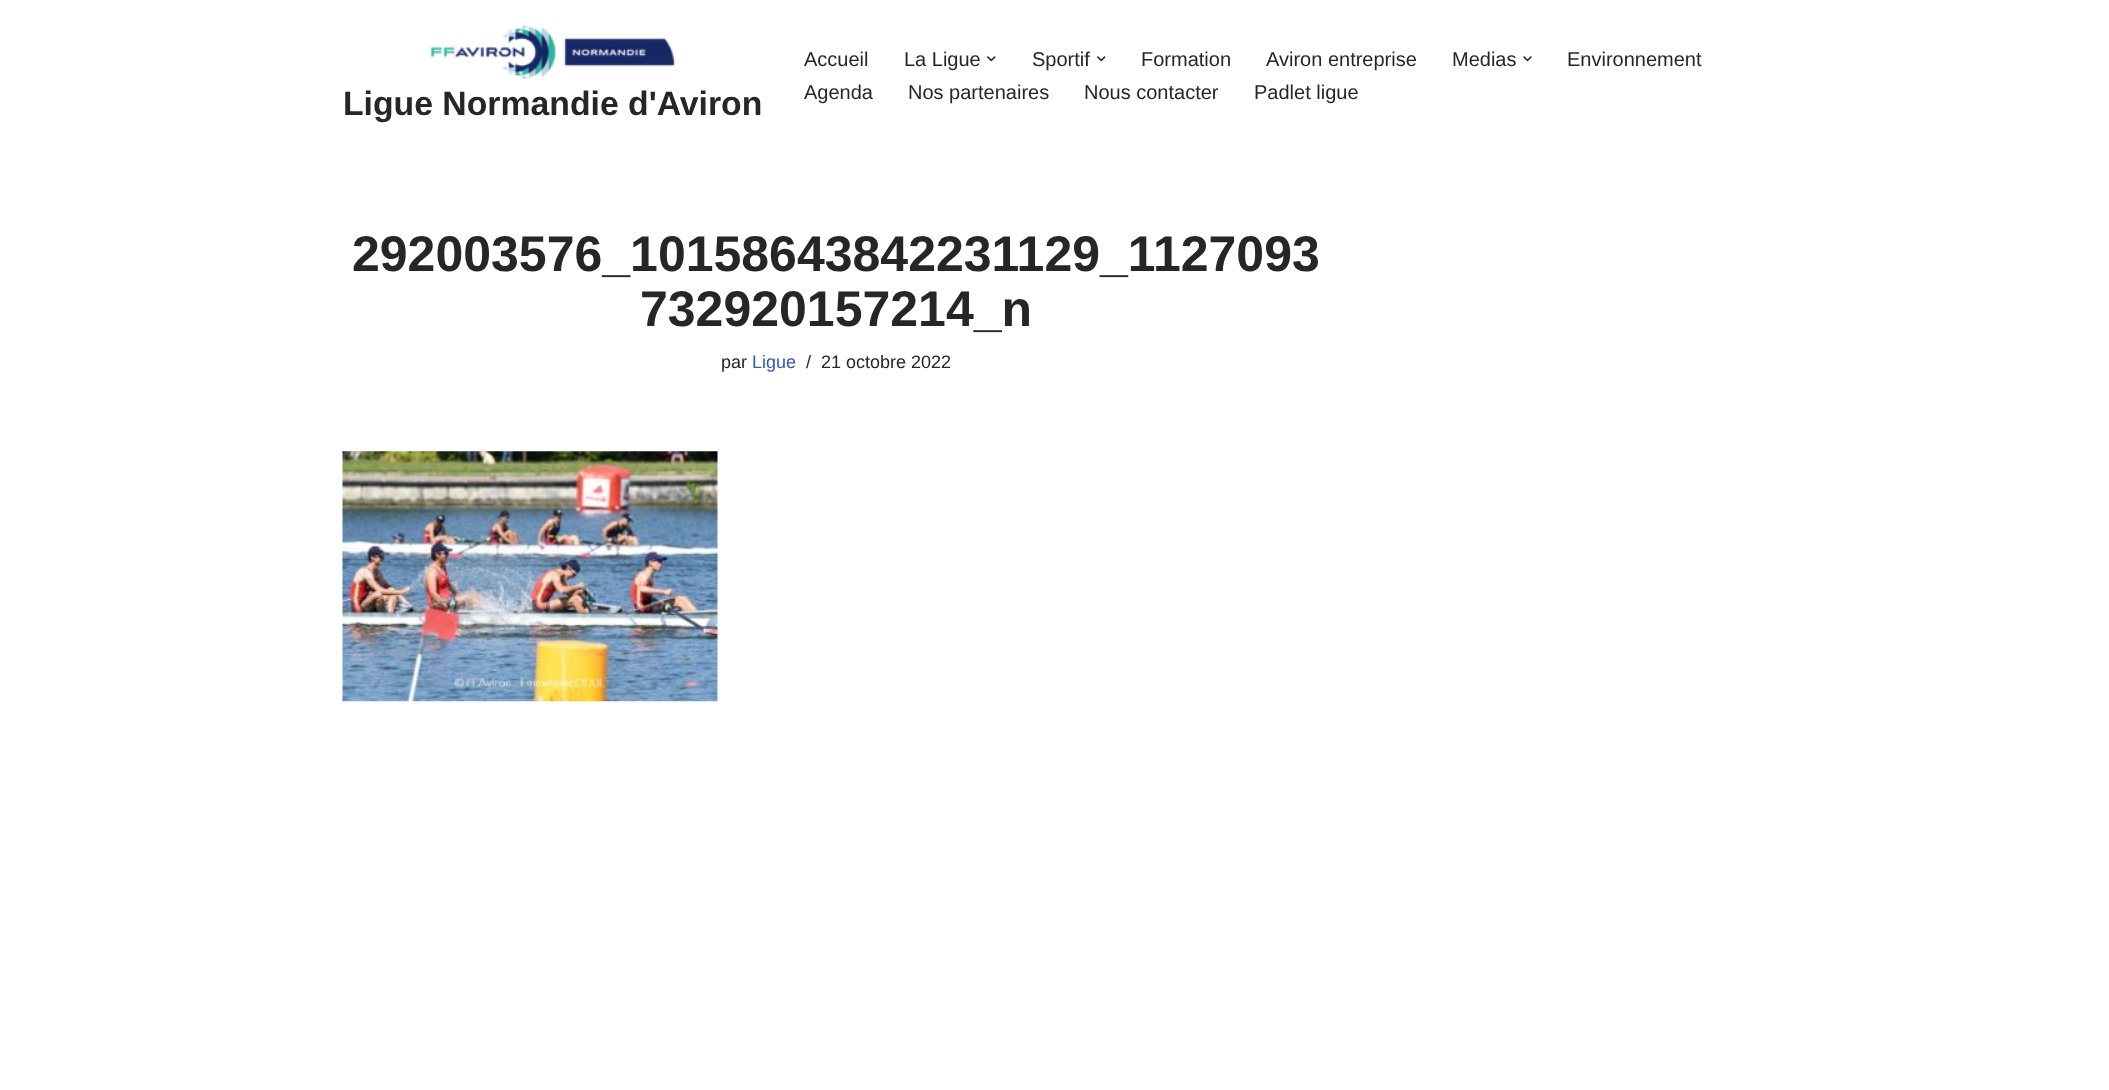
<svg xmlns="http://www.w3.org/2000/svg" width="2109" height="1090">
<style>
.a{font:bold 33.75px Liberation Sans;fill:#272626}
.b{font:20px Liberation Sans;fill:#272626}
.c{font:bold 50px Liberation Sans;fill:#272626}
.d{font:18px Liberation Sans;fill:#272626}
.e{font:18px Liberation Sans;fill:#2f5aae}
</style>
<rect width="100%" height="100%" fill="#fff"/>
<image href="1.png" x="430" y="25" width="246" height="54"/>
<image href="2.png" x="987" y="56" width="9" height="6"/>
<image href="2.png" x="1097" y="56" width="9" height="6"/>
<image href="3.png" x="1523" y="56" width="9" height="6"/>
<image href="4.png" x="342" y="451" width="376" height="251"/>
<text class="a" x="343" y="115">Ligue Normandie d'Aviron</text>
<text class="b" x="804" y="66">Accueil</text>
<text class="b" x="904" y="66">La Ligue</text>
<text class="b" x="1032" y="66">Sportif</text>
<text class="b" x="1141" y="66">Formation</text>
<text class="b" x="1266" y="66">Aviron entreprise</text>
<text class="b" x="1452" y="66">Medias</text>
<text class="b" x="1567" y="66">Environnement</text>
<text class="b" x="804" y="99">Agenda</text>
<text class="b" x="908" y="99">Nos partenaires</text>
<text class="b" x="1084" y="99">Nous contacter</text>
<text class="b" x="1254" y="99">Padlet ligue</text>
<text class="c" x="352" y="271">292003576_10158643842231129_1127093</text>
<text class="c" x="640" y="326">732920157214_n</text>
<text class="d" x="721" y="368">par</text>
<text class="e" x="752" y="368">Ligue</text>
<text class="d" x="806" y="368">/</text>
<text class="d" x="821" y="368">21 octobre 2022</text>
</svg>
